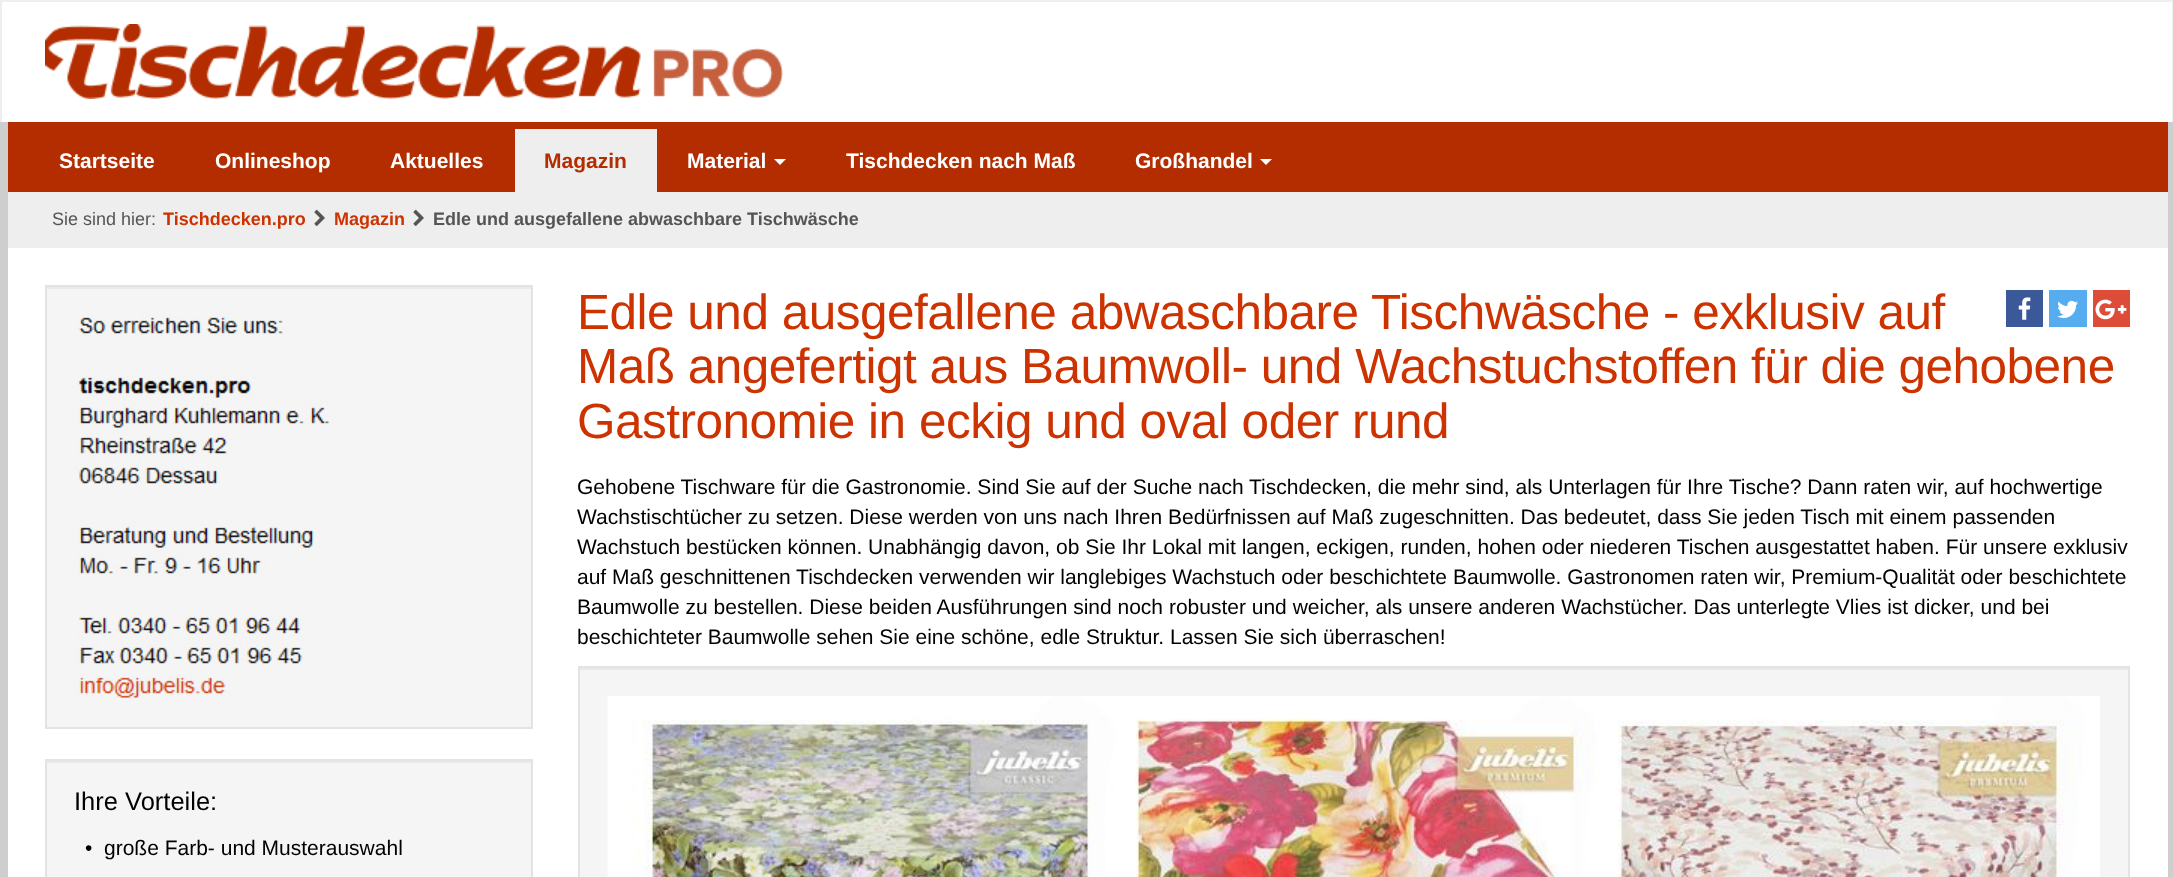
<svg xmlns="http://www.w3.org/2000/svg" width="2173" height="877">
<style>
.a{font:bold 21px Liberation Sans;fill:#fff}
.b{font:bold 21px Liberation Sans;fill:#b32d00}
.c{font:18px Liberation Sans;fill:#555}
.d{font:bold 18px Liberation Sans;fill:#c30}
.e{font:bold 18px Liberation Sans;fill:#555}
.f{font:49.5px Liberation Sans;letter-spacing:-0.5px;fill:#c30}
.g{font:21px Liberation Sans;fill:#000}
.h{font:25.5px Liberation Sans;fill:#000}
</style>
<rect width="100%" height="100%" fill="#cecece"/>
<path fill="#fff" d="M2 2h2170v120H2z"/>
<path fill="#eee" d="M0 0h2173v2H0z"/>
<path fill="#eee" d="M2172 0h1v122H2172z"/>
<path fill="#eee" d="M0 0h2v122H0z"/>
<image href="1.png" x="45" y="24" width="738" height="75"/>
<path fill="#b32d00" d="M8 122h2160v70H8z"/>
<path fill="#eee" d="M515 129h142v63H515z"/>
<path fill="#fff" d="M774 159h12l-6 6z"/>
<path fill="#fff" d="M1260 159h12l-6 6z"/>
<path fill="#eee" d="M8 192h2160v56H8z"/>
<image href="2.png" x="314" y="209" width="11" height="17"/>
<image href="2.png" x="413" y="209" width="11" height="17"/>
<path fill="#fff" d="M8 248h2160v629H8z"/>
<path fill="#3b5998" d="M2006 290h37v37H2006z"/>
<image href="3.png" x="2018" y="297" width="13" height="23"/>
<path fill="#55acee" d="M2049 290h38v37H2049z"/>
<image href="4.png" x="2057" y="300" width="21" height="18"/>
<path fill="#dd4b39" d="M2093 290h37v37H2093z"/>
<image href="5.png" x="2095" y="299" width="32" height="21"/>
<path fill="#f5f5f5" d="M580 670h1548v207H580z"/>
<path fill="#e9e9e9" d="M579 668h1550v2H579z"/>
<path fill="none" stroke="#e3e3e3" stroke-width="2" d="M579 667h1550v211H579z"/>
<image href="6.png" x="607" y="696" width="1493" height="181"/>
<path fill="#f5f5f5" d="M47 289h484v438H47z"/>
<path fill="#e9e9e9" d="M47 287h484v2H47z"/>
<path fill="none" stroke="#e3e3e3" stroke-width="2" d="M46 286h486v442H46z"/>
<image href="7.png" x="75" y="315" width="264" height="384"/>
<path fill="#f5f5f5" d="M47 763h484v114H47z"/>
<path fill="#e9e9e9" d="M47 761h484v2H47z"/>
<path fill="none" stroke="#e3e3e3" stroke-width="2" d="M46 760h486v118H46z"/>
<text class="a" x="59" y="168">Startseite</text>
<text class="a" x="215" y="168">Onlineshop</text>
<text class="a" x="390" y="168">Aktuelles</text>
<text class="b" x="544" y="168">Magazin</text>
<text class="a" x="687" y="168">Material</text>
<text class="a" x="846" y="168">Tischdecken nach Maß</text>
<text class="a" x="1135" y="168">Großhandel</text>
<text class="c" x="52" y="225">Sie sind hier:</text>
<text class="d" x="163" y="225">Tischdecken.pro</text>
<text class="d" x="334" y="225">Magazin</text>
<text class="e" x="433" y="225">Edle und ausgefallene abwaschbare Tischwäsche</text>
<text class="f" x="577" y="329">Edle und ausgefallene abwaschbare Tischwäsche - exklusiv auf</text>
<text class="f" x="577" y="383">Maß angefertigt aus Baumwoll- und Wachstuchstoffen für die gehobene</text>
<text class="f" x="577" y="438">Gastronomie in eckig und oval oder rund</text>
<text class="g" x="577" y="494">Gehobene Tischware für die Gastronomie. Sind Sie auf der Suche nach Tischdecken, die mehr sind, als Unterlagen für Ihre Tische? Dann raten wir, auf hochwertige</text>
<text class="g" x="577" y="524">Wachstischtücher zu setzen. Diese werden von uns nach Ihren Bedürfnissen auf Maß zugeschnitten. Das bedeutet, dass Sie jeden Tisch mit einem passenden</text>
<text class="g" x="577" y="554">Wachstuch bestücken können. Unabhängig davon, ob Sie Ihr Lokal mit langen, eckigen, runden, hohen oder niederen Tischen ausgestattet haben. Für unsere exklusiv</text>
<text class="g" x="577" y="584">auf Maß geschnittenen Tischdecken verwenden wir langlebiges Wachstuch oder beschichtete Baumwolle. Gastronomen raten wir, Premium-Qualität oder beschichtete</text>
<text class="g" x="577" y="614">Baumwolle zu bestellen. Diese beiden Ausführungen sind noch robuster und weicher, als unsere anderen Wachstücher. Das unterlegte Vlies ist dicker, und bei</text>
<text class="g" x="577" y="644">beschichteter Baumwolle sehen Sie eine schöne, edle Struktur. Lassen Sie sich überraschen!</text>
<text class="h" x="74" y="810">Ihre Vorteile:</text>
<text class="g" x="85" y="855">•</text>
<text class="g" x="104" y="855">große Farb- und Musterauswahl</text>
</svg>
